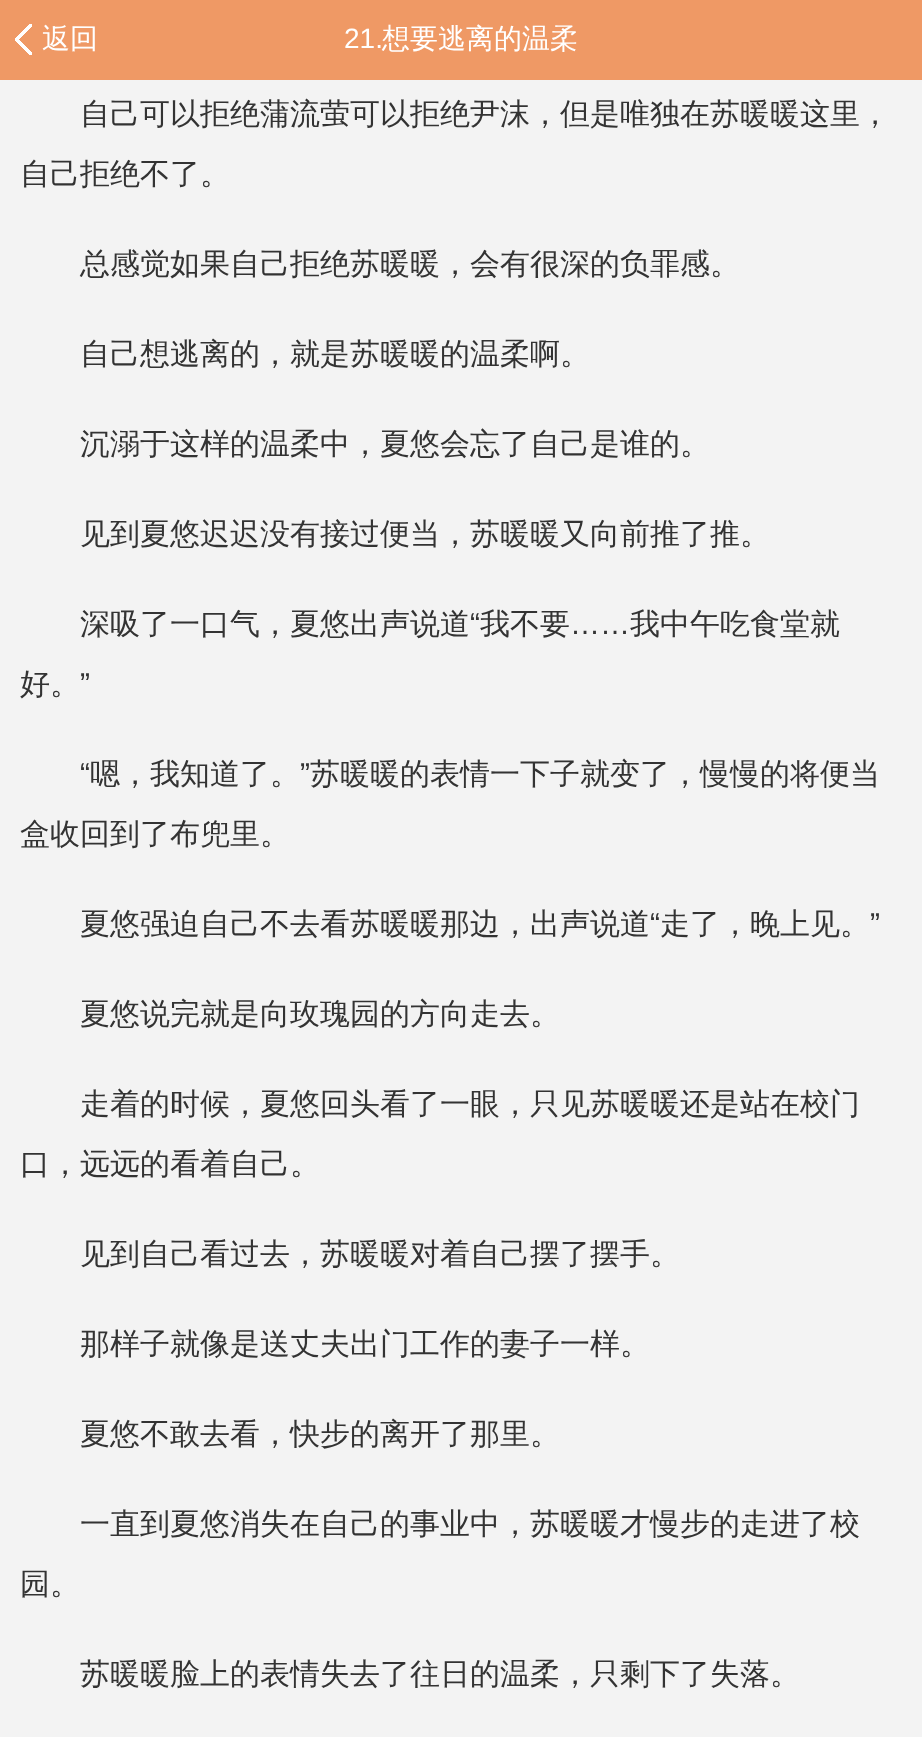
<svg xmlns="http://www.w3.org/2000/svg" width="922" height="1737">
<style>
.a{font:500 28px WenQuanYi Zen Hei;fill:#fff}
.b{font:28px Liberation Sans;fill:#fff}
.c{font:500 30px WenQuanYi Zen Hei;fill:#333}
.d{font:30px Liberation Sans;fill:#333}
</style>
<rect width="100%" height="100%" fill="#f3f3f3"/>
<path fill="#ef9965" d="M0 0h922v80H0z"/>
<image href="1.png" x="15" y="24" width="17" height="31"/>
<text class="a" x="42" y="48">返回</text>
<text class="b" x="344" y="48">21.</text>
<text class="a" x="382" y="48">想要逃离的温柔</text>
<text class="c" x="80" y="124">自己可以拒绝蒲流萤可以拒绝尹沫，但是唯独在苏暖暖这里，</text>
<text class="c" x="20" y="184">自己拒绝不了。</text>
<text class="c" x="80" y="274">总感觉如果自己拒绝苏暖暖，会有很深的负罪感。</text>
<text class="c" x="80" y="364">自己想逃离的，就是苏暖暖的温柔啊。</text>
<text class="c" x="80" y="454">沉溺于这样的温柔中，夏悠会忘了自己是谁的。</text>
<text class="c" x="80" y="544">见到夏悠迟迟没有接过便当，苏暖暖又向前推了推。</text>
<text class="c" x="80" y="634">深吸了一口气，夏悠出声说道</text>
<text class="d" x="470" y="634">“</text>
<text class="c" x="480" y="634">我不要</text>
<text class="c" x="630" y="634">我中午吃食堂就</text>
<text class="d" x="570" y="634">……</text>
<text class="c" x="20" y="694">好。</text>
<text class="d" x="80" y="694">”</text>
<text class="d" x="80" y="784">“</text>
<text class="c" x="90" y="784">嗯，我知道了。</text>
<text class="d" x="300" y="784">”</text>
<text class="c" x="310" y="784">苏暖暖的表情一下子就变了，慢慢的将便当</text>
<text class="c" x="20" y="844">盒收回到了布兜里。</text>
<text class="c" x="80" y="934">夏悠强迫自己不去看苏暖暖那边，出声说道</text>
<text class="d" x="650" y="934">“</text>
<text class="c" x="660" y="934">走了，晚上见。</text>
<text class="d" x="870" y="934">”</text>
<text class="c" x="80" y="1024">夏悠说完就是向玫瑰园的方向走去。</text>
<text class="c" x="80" y="1114">走着的时候，夏悠回头看了一眼，只见苏暖暖还是站在校门</text>
<text class="c" x="20" y="1174">口，远远的看着自己。</text>
<text class="c" x="80" y="1264">见到自己看过去，苏暖暖对着自己摆了摆手。</text>
<text class="c" x="80" y="1354">那样子就像是送丈夫出门工作的妻子一样。</text>
<text class="c" x="80" y="1444">夏悠不敢去看，快步的离开了那里。</text>
<text class="c" x="80" y="1534">一直到夏悠消失在自己的事业中，苏暖暖才慢步的走进了校</text>
<text class="c" x="20" y="1594">园。</text>
<text class="c" x="80" y="1684">苏暖暖脸上的表情失去了往日的温柔，只剩下了失落。</text>
</svg>
